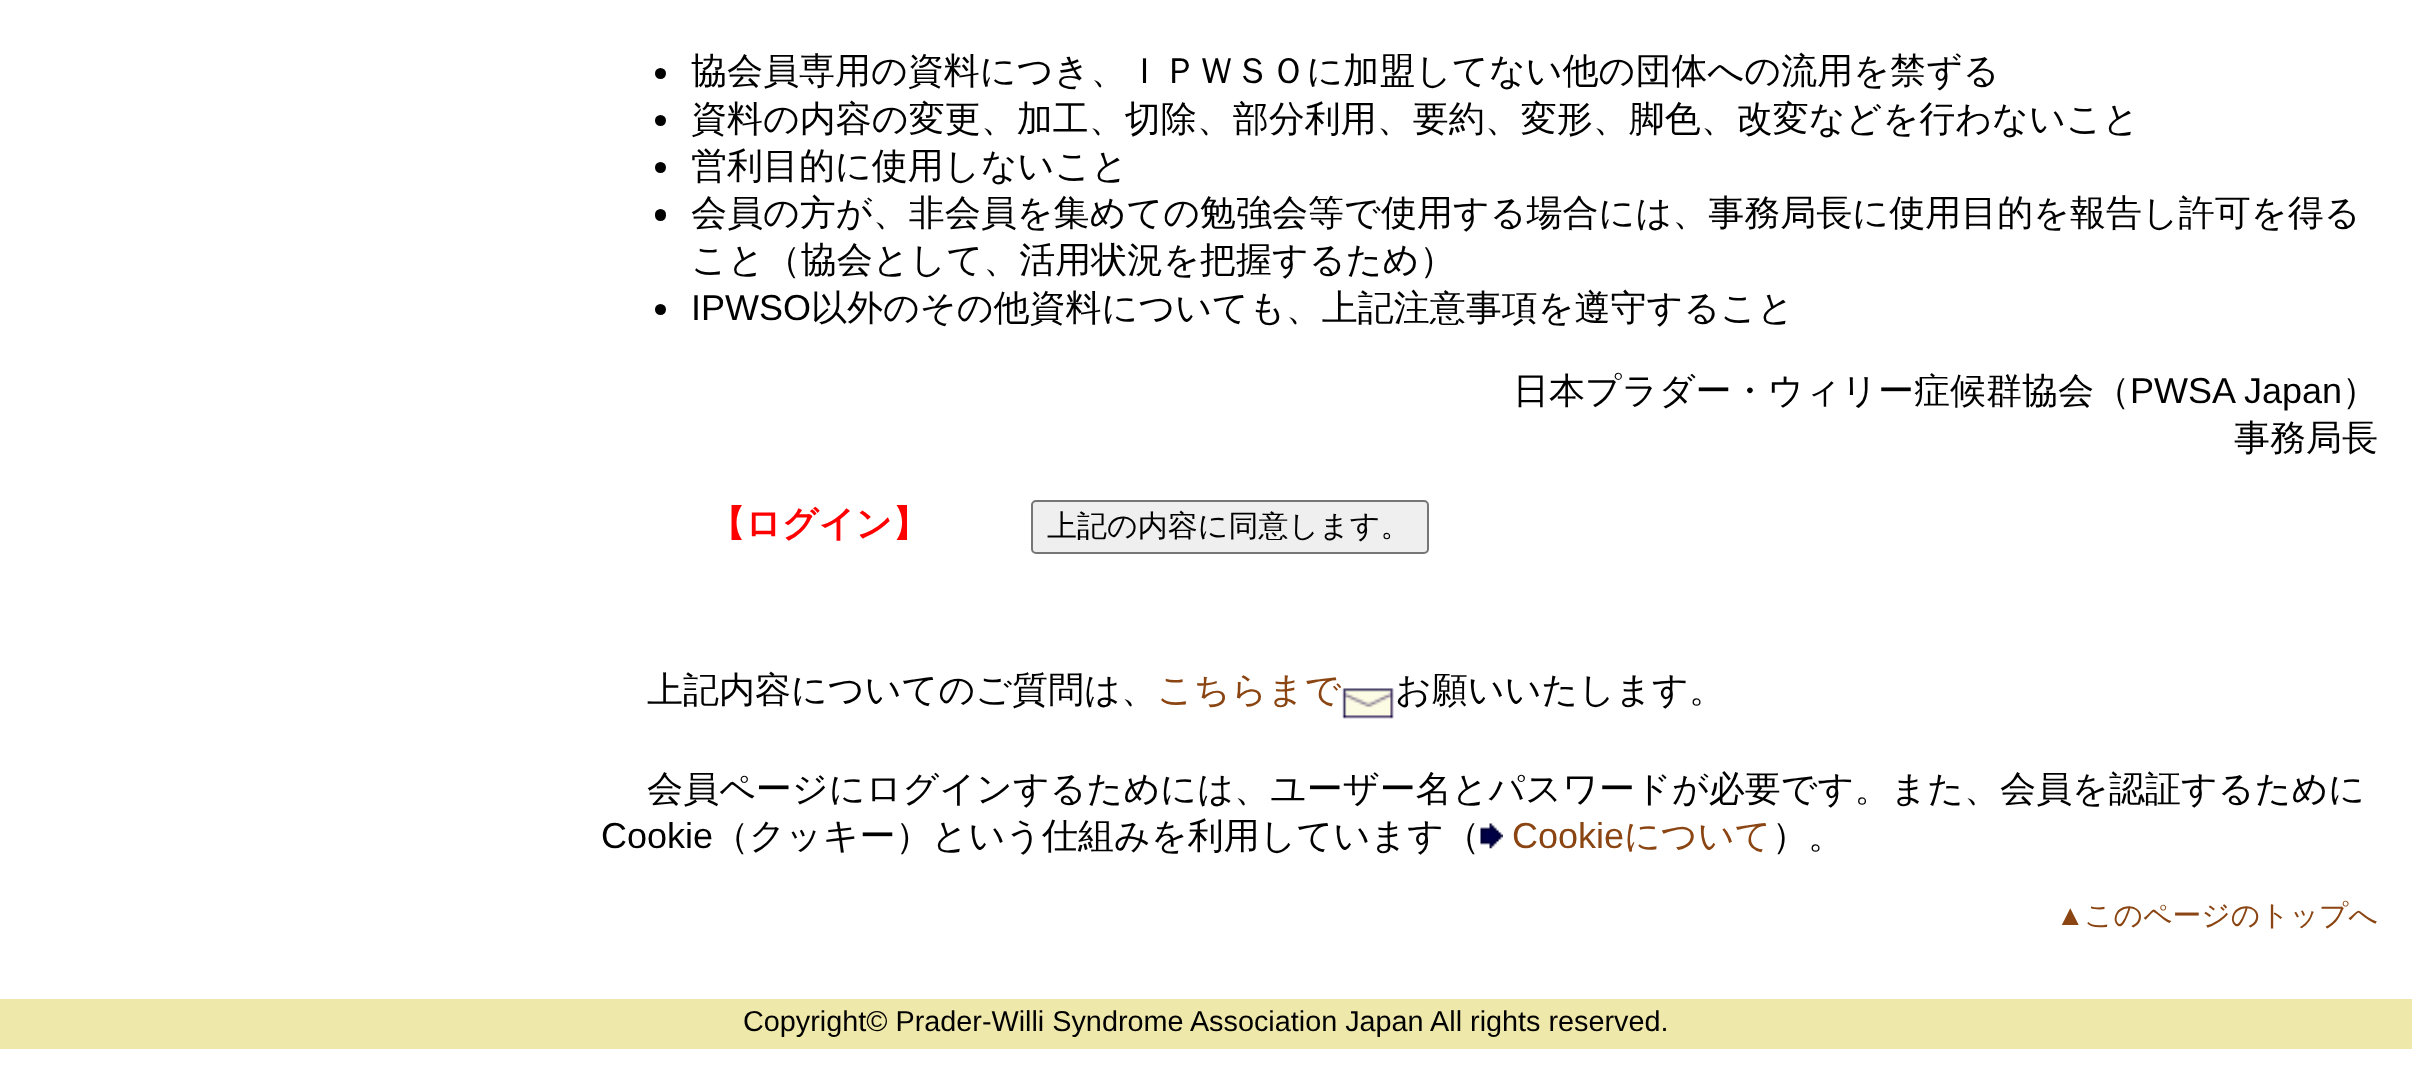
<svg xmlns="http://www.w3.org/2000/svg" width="2412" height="1073">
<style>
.a{font:500 36px WenQuanYi Zen Hei;fill:#000}
.b{font:36px Liberation Sans;fill:#000}
.c{font:bold 36px WenQuanYi Zen Hei;fill:#f00}
.d{font:500 30px WenQuanYi Zen Hei;fill:#000}
.e{font:500 36px WenQuanYi Zen Hei;fill:#8a4512}
.f{font:36px Liberation Sans;fill:#8a4512}
.g{font:28.8px Liberation Sans;fill:#8a4512}
.h{font:500 28.8px WenQuanYi Zen Hei;fill:#8a4512}
.i{font:28.8px Liberation Sans;fill:#000}
</style>
<rect width="100%" height="100%" fill="#fff"/>
<circle fill="#000" cx="660.5" cy="73.5" r="5.5"/>
<circle fill="#000" cx="660.5" cy="120.5" r="5.5"/>
<circle fill="#000" cx="660.5" cy="167.5" r="5.5"/>
<rect fill="#000" x="655" y="209" width="11" height="12" rx="5.5"/>
<circle fill="#000" cx="660.5" cy="309.5" r="5.5"/>
<rect fill="#efefef" stroke="#767676" stroke-width="2" x="1032" y="501" width="396" height="52" rx="4"/>
<image href="1.png" x="1342" y="688" width="52" height="31"/>
<image href="2.png" x="1480" y="823" width="23" height="26"/>
<path fill="#eee8aa" d="M0 999h2412v50H0z"/>
<text class="a" x="691" y="83">協会員専用の資料につき、ＩＰＷＳＯに加盟してない他の団体への流用を禁ずる</text>
<text class="a" x="691" y="131">資料の内容の変更、加工、切除、部分利用、要約、変形、脚色、改変などを行わないこと</text>
<text class="a" x="691" y="178">営利目的に使用しないこと</text>
<text class="a" x="691" y="225">会員の方が、非会員を集めての勉強会等で使用する場合には、事務局長に使用目的を報告し許可を得る</text>
<text class="a" x="691" y="272">こと（協会として、活用状況を把握するため）</text>
<text class="b" x="691" y="320">IPWSO</text>
<text class="a" x="811" y="320">以外のその他資料についても、上記注意事項を遵守すること</text>
<text class="a" x="1513" y="403">日本プラダー・ウィリー症候群協会（</text>
<text class="b" x="2130" y="403">PWSA Japan</text>
<text class="a" x="2342" y="403">）</text>
<text class="a" x="2234" y="450">事務局長</text>
<text class="c" x="709" y="536">【ログイン】</text>
<text class="d" x="1047" y="536">上記の内容に同意します。</text>
<text class="a" x="647" y="702">上記内容についてのご質問は、</text>
<text class="e" x="1157" y="702">こちらまで</text>
<text class="a" x="1395" y="702">お願いいたします。</text>
<text class="a" x="647" y="801">会員ページにログインするためには、ユーザー名とパスワードが必要です。また、会員を認証するために</text>
<text class="b" x="601" y="848">Cookie</text>
<text class="a" x="713" y="848">（クッキー）という仕組みを利用しています（</text>
<text class="f" x="1512" y="848">Cookie</text>
<text class="e" x="1624" y="848">について</text>
<text class="a" x="1772" y="848">）。</text>
<text class="g" x="2056" y="925">▲</text>
<text class="h" x="2084" y="925">このページのトップへ</text>
<text class="i" x="743" y="1031">Copyright© Prader-Willi Syndrome Association Japan All rights reserved.</text>
</svg>
